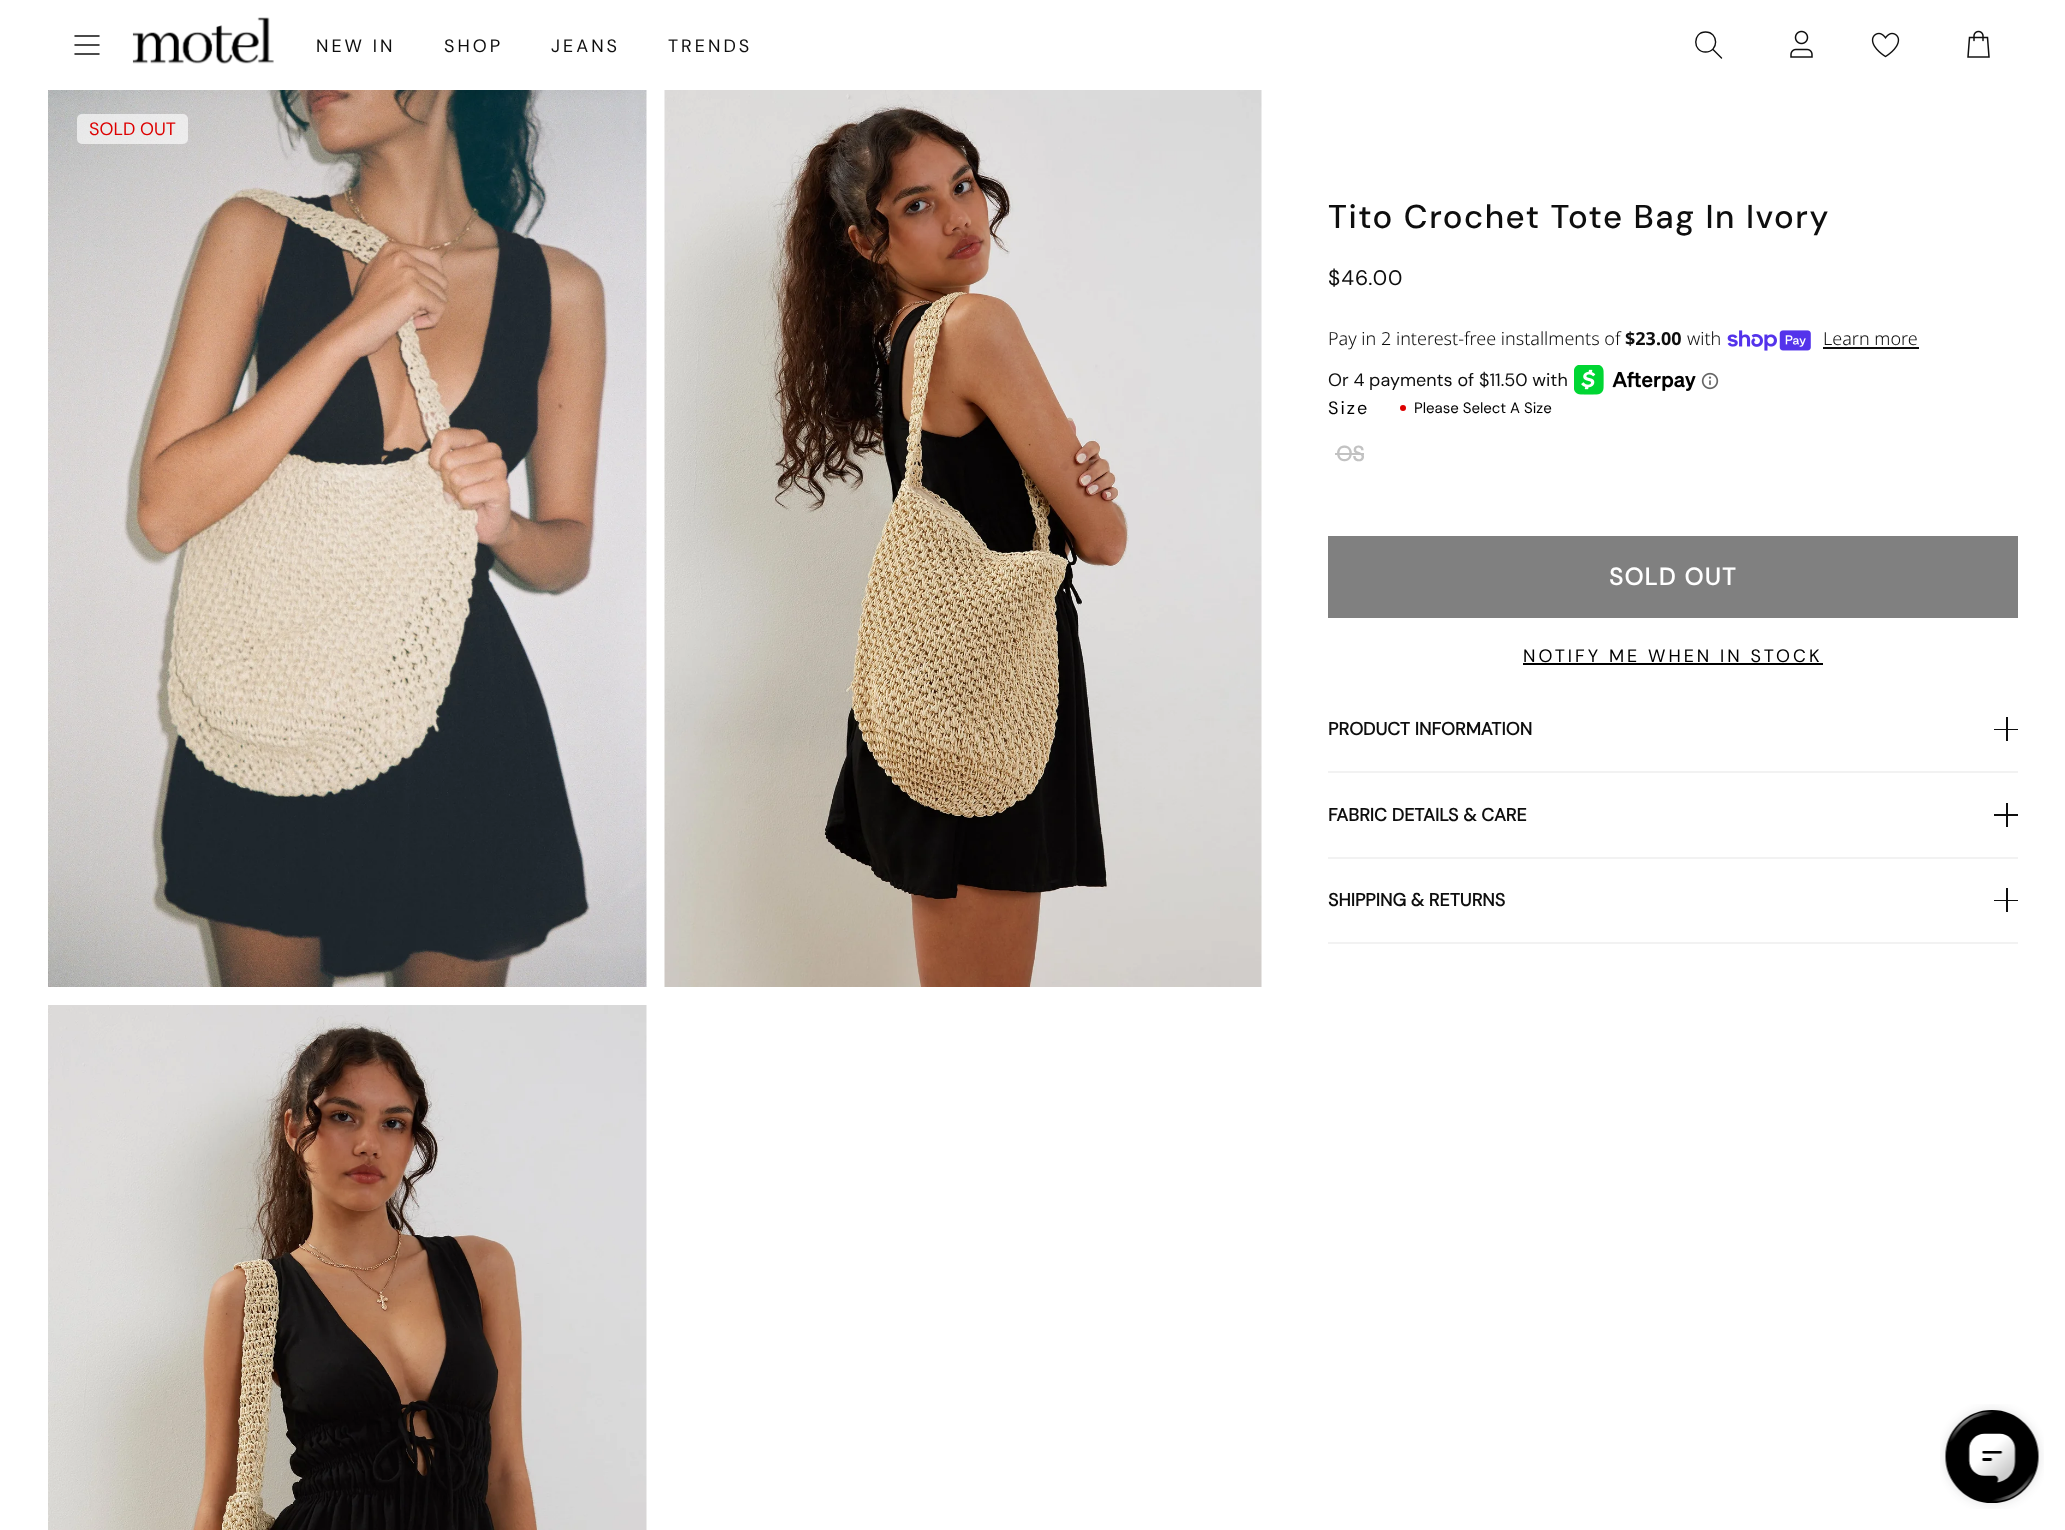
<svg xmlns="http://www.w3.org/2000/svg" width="2065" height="1530">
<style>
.a{font:18px DM Sans;letter-spacing:3px;fill:#0e0e0e}
.b{font:18px DM Sans;fill:#d00}
.c{font:500 33px DM Sans;letter-spacing:1.5px;fill:#0e0e0e}
.d{font:21px DM Sans;letter-spacing:1px;fill:#0e0e0e}
.e{font:300 18px Noto Sans;fill:#0e0e0e}
.f{font:bold 18px Noto Sans;fill:#0e0e0e}
.g{font:18px DM Sans;fill:#0e0e0e}
.h{font:18px DM Sans;letter-spacing:2px;fill:#000}
.i{font:15px DM Sans;fill:#000}
.j{font:bold 21px DM Sans;fill:#c2c2c2}
.k{font:bold 24px DM Sans;letter-spacing:1.5px;fill:#fff}
.l{font:18px DM Sans;letter-spacing:3px;fill:#000}
.m{font:bold 18px DM Sans;fill:#0e0e0e}
</style>
<rect width="100%" height="100%" fill="#fff"/>
<path fill="none" stroke="#0f0f0f" stroke-width="1.5" stroke-linecap="round" d="M75 45h24m-24-9h24m-24 18h24"/>
<image href="1.png" x="132" y="17" width="142" height="47"/>
<path fill="none" stroke="#0f0f0f" stroke-width="1.4" stroke-linecap="round" d="M1713 49.5l8.5 8.5m-16-6c-13 0-13-20 0-20c13.5 0 13.5 20 0 20z"/>
<image href="2.png" x="1790" y="30" width="23" height="28"/>
<image href="3.png" x="1871" y="32" width="29" height="26"/>
<image href="4.png" x="1967" y="30" width="23" height="28"/>
<image href="5.png" x="48" y="90" width="599" height="897"/>
<image href="6.png" x="664" y="90" width="598" height="897"/>
<image href="7.png" x="48" y="1005" width="599" height="525"/>
<rect fill="#ffffffa6" x="77" y="114" width="111" height="30" rx="5"/>
<image href="8.png" x="1727" y="330" width="84" height="21"/>
<path fill="#0e0e0e" d="M1823 347h96v2H1823z"/>
<image href="9.png" x="1574" y="365" width="122" height="30"/>
<image href="10.png" x="1701" y="372" width="18" height="18"/>
<circle fill="#d00" cx="1403" cy="408" r="3"/>
<path fill="#c2c2c2" d="M1335 453h29v2H1335z"/>
<path fill="#808080" d="M1328 536h690v82H1328z"/>
<path fill="#000" d="M1523 663h300v2H1523z"/>
<path fill="#f2f2f2" d="M1328 771h690v2H1328z"/>
<path fill="#0e0e0e" d="M2006 717h2v24H2006z"/>
<path fill="#0e0e0e" d="M1994 729h24v1H1994z"/>
<path fill="#f2f2f2" d="M1328 857h690v2H1328z"/>
<path fill="#0e0e0e" d="M2006 803h2v24H2006z"/>
<path fill="#0e0e0e" d="M1994 814h24v2H1994z"/>
<path fill="#f2f2f2" d="M1328 942h690v2H1328z"/>
<path fill="#0e0e0e" d="M2006 888h2v24H2006z"/>
<path fill="#0e0e0e" d="M1994 900h24v1H1994z"/>
<image href="11.png" x="1940" y="1404" width="104" height="105"/>
<text class="a" x="316" y="52">NEW IN</text>
<text class="a" x="444" y="52">SHOP</text>
<text class="a" x="551" y="52">JEANS</text>
<text class="a" x="668" y="52">TRENDS</text>
<text class="b" x="89" y="135">SOLD OUT</text>
<text class="c" x="1328" y="228">Tito Crochet Tote Bag In Ivory</text>
<text class="d" x="1328" y="285">$46.00</text>
<text class="e" x="1328" y="345">Pay in 2 interest-free installments of</text>
<text class="f" x="1625" y="345">$23.00</text>
<text class="e" x="1687" y="345">with</text>
<text class="e" x="1823" y="345">Learn more</text>
<text class="g" x="1328" y="386">Or 4 payments of $11.50 with</text>
<text class="h" x="1328" y="414">Size</text>
<text class="i" x="1414" y="413">Please Select A Size</text>
<text class="j" x="1336" y="461">OS</text>
<text class="k" x="1609" y="585">SOLD OUT</text>
<text class="l" x="1523" y="662">NOTIFY ME WHEN IN STOCK</text>
<text class="m" x="1328" y="735">PRODUCT INFORMATION</text>
<text class="m" x="1328" y="821">FABRIC DETAILS &amp; CARE</text>
<text class="m" x="1328" y="906">SHIPPING &amp; RETURNS</text>
</svg>
